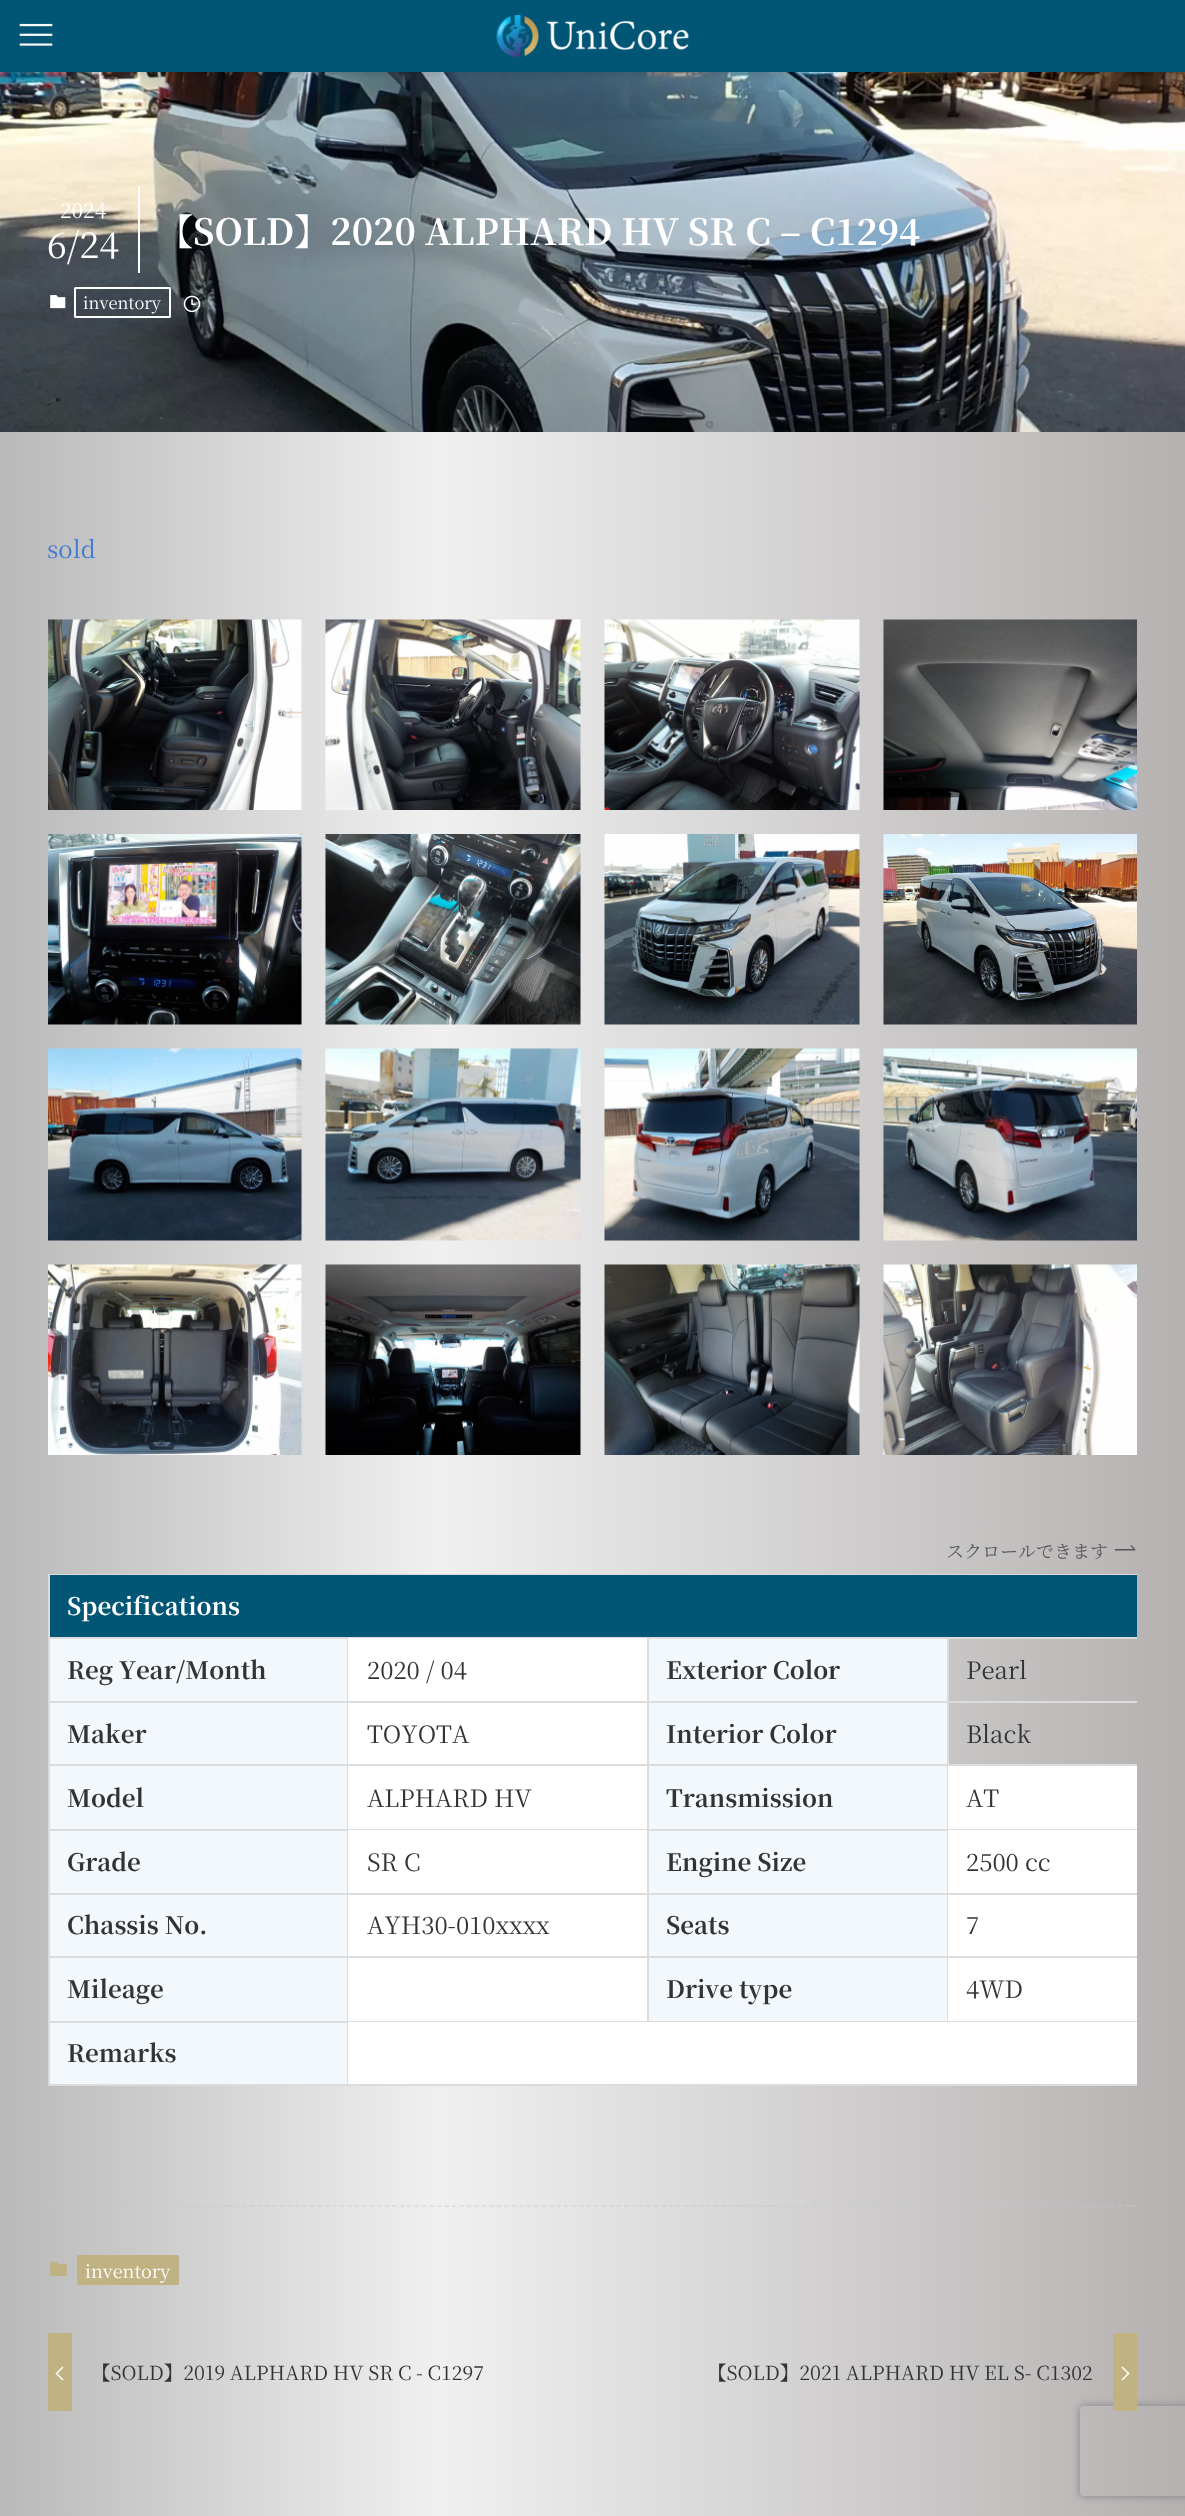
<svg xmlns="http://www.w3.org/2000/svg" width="1185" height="2516">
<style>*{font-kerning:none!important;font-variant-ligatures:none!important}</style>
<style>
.a{font:21px Noto Serif JP;fill:#fff}
.b{font:36px Noto Serif JP;fill:#fff}
.c{font:bold 36px Noto Serif JP;fill:#fff}
.d{font:16.5px Noto Serif JP;fill:#fff}
.e{font:24px Noto Serif JP;fill:#3d79d5}
.f{font:18px Noto Serif JP;fill:#575656}
.g{font:bold 24px Noto Serif JP;fill:#fff}
.h{font:bold 24px Noto Serif JP;fill:#333}
.i{font:24px Noto Serif JP;fill:#333}
.j{font:18px Noto Serif JP;fill:#fff}
.k{font:19.5px Noto Serif JP;fill:#333}
</style>
<defs>
<linearGradient id="g1" gradientUnits="userSpaceOnUse" x1="0" y1="1688" x2="1185" y2="1688"><stop offset="0" stop-color="#b9b9b9"/><stop offset="0.37" stop-color="#f0f0f0"/><stop offset="1" stop-color="#b5b1b1"/></linearGradient>
<clipPath id="clip1"><path d="M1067 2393h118v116h-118zm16 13h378c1.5 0 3 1.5 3 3v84c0 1.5-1.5 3-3 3h-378c-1.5 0-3-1.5-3-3v-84c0-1.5 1.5-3 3-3z" clip-rule="evenodd"/></clipPath>
</defs>
<rect width="100%" height="100%" fill="#fff"/>
<path fill="url(#g1)" d="M0 432h1185v2084H0z"/>
<image href="3.png" x="0" y="72" width="1185" height="360"/>
<path fill="#0000001f" filter="blur(3px)" d="M0 2h1185v72H0z"/>
<path fill="#015675" d="M0 0h1185v72H0z"/>
<image href="1.png" x="19" y="23" width="34" height="23"/>
<image href="2.png" x="496" y="15" width="193" height="42"/>
<path fill="#fff" d="M138 186h2v87H138z"/>
<image href="4.png" x="50" y="295" width="16" height="14"/>
<rect fill="none" stroke="#fff" stroke-width="2" x="75" y="288" width="95" height="29" rx="0.5"/>
<image href="5.png" x="183" y="295" width="18" height="18"/>
<image href="6.png" x="48" y="619" width="254" height="191"/>
<image href="7.png" x="325" y="619" width="256" height="191"/>
<image href="8.png" x="604" y="619" width="256" height="191"/>
<image href="9.png" x="883" y="619" width="254" height="191"/>
<image href="10.png" x="48" y="834" width="254" height="191"/>
<image href="11.png" x="325" y="834" width="256" height="191"/>
<image href="12.png" x="604" y="834" width="256" height="191"/>
<image href="13.png" x="883" y="834" width="254" height="191"/>
<image href="14.png" x="48" y="1048" width="254" height="193"/>
<image href="15.png" x="325" y="1048" width="256" height="193"/>
<image href="16.png" x="604" y="1048" width="256" height="193"/>
<image href="17.png" x="883" y="1048" width="254" height="193"/>
<image href="18.png" x="48" y="1264" width="254" height="191"/>
<image href="19.png" x="325" y="1264" width="256" height="191"/>
<image href="20.png" x="604" y="1264" width="256" height="191"/>
<image href="21.png" x="883" y="1264" width="254" height="191"/>
<path fill="#555454" d="M1135 1550.5h-20v-1.5h18.5l-3-3l1-1l4 4.5z"/>
<path fill="#dcdcdc" d="M48 2084h1089v2H48z"/>
<path fill="#dcdcdc" d="M48 1574h1089v1H48z"/>
<path fill="#dcdcdc" d="M48 1574h2v63H48z"/>
<path fill="#015675" d="M50 1575h1087v62H50z"/>
<path fill="#f3f8fd" d="M50 1639h297v62H50z"/>
<path fill="#dcdcdc" d="M48 1637h299v2H48z"/>
<path fill="#dcdcdc" d="M48 1637h2v64H48z"/>
<path fill="#dcdcdc" d="M347 1637h300v1H347z"/>
<path fill="#dcdcdc" d="M347 1637h2v64H347z"/>
<path fill="#fff" d="M348 1638h299v63H348z"/>
<path fill="#f3f8fd" d="M649 1639h298v62H649z"/>
<path fill="#dcdcdc" d="M647 1637h490v2H647z"/>
<path fill="#dcdcdc" d="M647 1637h2v64H647z"/>
<path fill="#dcdcdc" d="M947 1637h2v64H947z"/>
<path fill="#f3f8fd" d="M50 1703h297v61H50z"/>
<path fill="#dcdcdc" d="M48 1701h1089v2H48z"/>
<path fill="#dcdcdc" d="M48 1701h2v63H48z"/>
<path fill="#dcdcdc" d="M347 1701h2v63H347z"/>
<path fill="#fff" d="M348 1703h299v61H348z"/>
<path fill="#f3f8fd" d="M649 1703h298v61H649z"/>
<path fill="#dcdcdc" d="M647 1701h2v63H647z"/>
<path fill="#dcdcdc" d="M947 1701h2v63H947z"/>
<path fill="#f3f8fd" d="M50 1766h297v63H50z"/>
<path fill="#dcdcdc" d="M48 1764h1089v2H48z"/>
<path fill="#dcdcdc" d="M48 1764h2v65H48z"/>
<path fill="#dcdcdc" d="M347 1764h2v65H347z"/>
<path fill="#fff" d="M348 1766h299v63H348z"/>
<path fill="#f3f8fd" d="M649 1766h298v63H649z"/>
<path fill="#dcdcdc" d="M647 1764h2v65H647z"/>
<path fill="#dcdcdc" d="M947 1764h2v65H947z"/>
<path fill="#fff" d="M948 1766h189v63H948z"/>
<path fill="#f3f8fd" d="M50 1831h297v62H50z"/>
<path fill="#dcdcdc" d="M48 1829h299v2H48z"/>
<path fill="#dcdcdc" d="M48 1829h2v64H48z"/>
<path fill="#dcdcdc" d="M347 1829h300v1H347z"/>
<path fill="#dcdcdc" d="M347 1829h2v64H347z"/>
<path fill="#fff" d="M348 1830h299v63H348z"/>
<path fill="#f3f8fd" d="M649 1831h298v62H649z"/>
<path fill="#dcdcdc" d="M647 1829h300v2H647z"/>
<path fill="#dcdcdc" d="M647 1829h2v64H647z"/>
<path fill="#dcdcdc" d="M947 1829h190v1H947z"/>
<path fill="#dcdcdc" d="M947 1829h2v64H947z"/>
<path fill="#fff" d="M948 1830h189v63H948z"/>
<path fill="#f3f8fd" d="M50 1895h297v61H50z"/>
<path fill="#dcdcdc" d="M48 1893h1089v2H48z"/>
<path fill="#dcdcdc" d="M48 1893h2v63H48z"/>
<path fill="#dcdcdc" d="M347 1893h2v63H347z"/>
<path fill="#fff" d="M348 1895h299v61H348z"/>
<path fill="#f3f8fd" d="M649 1895h298v61H649z"/>
<path fill="#dcdcdc" d="M647 1893h2v63H647z"/>
<path fill="#dcdcdc" d="M947 1893h2v63H947z"/>
<path fill="#fff" d="M948 1895h189v61H948z"/>
<path fill="#f3f8fd" d="M50 1958h297v63H50z"/>
<path fill="#dcdcdc" d="M48 1956h1089v2H48z"/>
<path fill="#dcdcdc" d="M48 1956h2v65H48z"/>
<path fill="#dcdcdc" d="M347 1956h2v65H347z"/>
<path fill="#fff" d="M348 1958h299v63H348z"/>
<path fill="#f3f8fd" d="M649 1958h298v63H649z"/>
<path fill="#dcdcdc" d="M647 1956h2v65H647z"/>
<path fill="#dcdcdc" d="M947 1956h2v65H947z"/>
<path fill="#fff" d="M948 1958h189v63H948z"/>
<path fill="#f3f8fd" d="M50 2023h297v61H50z"/>
<path fill="#dcdcdc" d="M48 2021h299v2H48z"/>
<path fill="#dcdcdc" d="M48 2021h2v63H48z"/>
<path fill="#dcdcdc" d="M347 2021h790v1H347z"/>
<path fill="#dcdcdc" d="M347 2021h2v63H347z"/>
<path fill="#fff" d="M348 2022h789v62H348z"/>
<path fill="none" stroke="#c7c7c780" stroke-width="1.5" stroke-dasharray="4.5 2.98" d="M48 2206h1089"/>
<image href="22.png" x="50" y="2261" width="17" height="15"/>
<rect fill="#c0b283" x="77" y="2255" width="102" height="30" rx="1.5"/>
<path fill="#c0b283" d="M48 2333h24v78H48z"/>
<path fill="#fff" d="M56.5 2372.5l7 7l-1 1l-7-7z"/>
<path fill="#fff" d="M62.5 2366.5l1 1l-7 7l-1-1z"/>
<g clip-path="url(#clip1)">
<rect fill="#808080" filter="blur(4px)" x="1080" y="2406" width="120" height="90" rx="3"/>
</g>
<path fill="#c0b283" d="M1113 2333h24v78H1113z"/>
<path fill="#fff" d="M1121.5 2367.5l1-1l7 7l-1 1z"/>
<path fill="#fff" d="M1121.5 2379.5l7-7l1 1l-7 7z"/>
<text class="a" x="60" y="218">2024</text>
<text class="b" x="47" y="258">6/24</text>
<text class="c" x="157" y="245">【SOLD】2020 ALPHARD HV SR C – C1294</text>
<text class="d" x="83" y="309">inventory</text>
<text class="e" x="47" y="558">sold</text>
<text class="f" x="946" y="1558">スクロールできます</text>
<text class="g" x="67" y="1615">Specifications</text>
<text class="h" x="67" y="1679">Reg Year/Month</text>
<text class="i" x="367" y="1679">2020 / 04</text>
<text class="h" x="666" y="1679">Exterior Color</text>
<text class="i" x="966" y="1679">Pearl</text>
<text class="h" x="67" y="1743">Maker</text>
<text class="i" x="367" y="1743">TOYOTA</text>
<text class="h" x="666" y="1743">Interior Color</text>
<text class="i" x="966" y="1743">Black</text>
<text class="h" x="67" y="1807">Model</text>
<text class="i" x="367" y="1807">ALPHARD HV</text>
<text class="h" x="666" y="1807">Transmission</text>
<text class="i" x="966" y="1807">AT</text>
<text class="h" x="67" y="1871">Grade</text>
<text class="i" x="367" y="1871">SR C</text>
<text class="h" x="666" y="1871">Engine Size</text>
<text class="i" x="966" y="1871">2500 cc</text>
<text class="h" x="67" y="1934">Chassis No.</text>
<text class="i" x="367" y="1934">AYH30-010xxxx</text>
<text class="h" x="666" y="1934">Seats</text>
<text class="i" x="966" y="1934">7</text>
<text class="h" x="67" y="1998">Mileage</text>
<text class="h" x="666" y="1998">Drive type</text>
<text class="i" x="966" y="1998">4WD</text>
<text class="h" x="67" y="2062">Remarks</text>
<text class="j" x="85" y="2278">inventory</text>
<text class="k" x="91" y="2380" word-spacing="-0.25">【SOLD】2019 ALPHARD HV SR C - C1297</text>
<text class="k" x="707" y="2380" word-spacing="-0.25">【SOLD】2021 ALPHARD HV EL S- C1302</text>
</svg>
